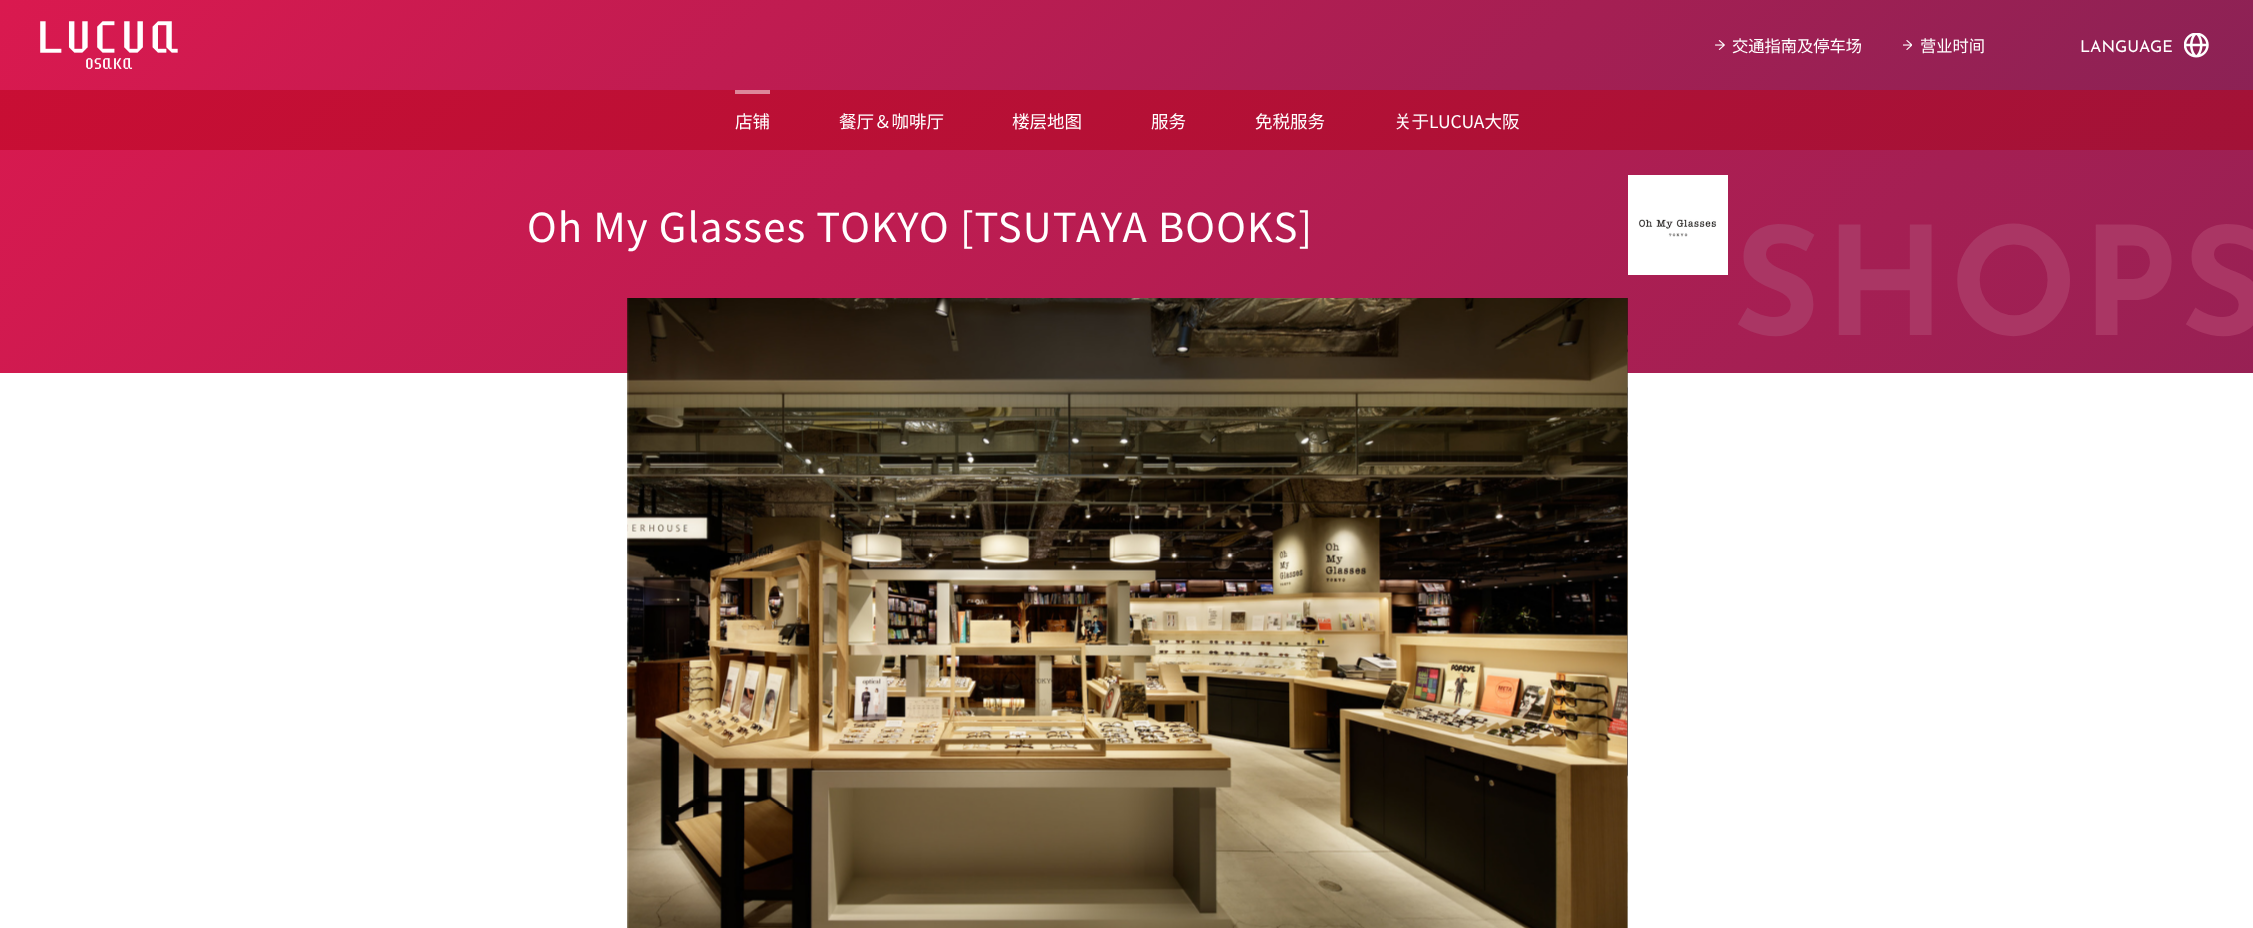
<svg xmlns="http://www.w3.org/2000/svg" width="2253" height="928">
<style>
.a{font:16.25px Noto Sans CJK JP;fill:#fff}
.b{font:16.25px Josefin Sans;fill:#fff}
.c{font:17.5px Noto Sans CJK JP;fill:#fff}
.d{font:40px Noto Sans CJK JP;letter-spacing:1.1px;fill:#fff}
.e{font:bold 150px Josefin Sans;letter-spacing:4px;fill:#aa3664}
</style>
<defs>
<linearGradient id="g1" gradientUnits="userSpaceOnUse" x1="526" y1="-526" x2="1728" y2="676"><stop offset="0" stop-color="#da194f"/><stop offset="1" stop-color="#8a2255"/></linearGradient>
<linearGradient id="g2" gradientUnits="userSpaceOnUse" x1="526" y1="-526" x2="1728" y2="676"><stop offset="0" stop-color="#ca0e34"/><stop offset="1" stop-color="#a21237"/></linearGradient>
<linearGradient id="g3" gradientUnits="userSpaceOnUse" x1="331" y1="-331" x2="1923" y2="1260"><stop offset="0" stop-color="#da194f"/><stop offset="1" stop-color="#8a2255"/></linearGradient>
</defs>
<rect width="100%" height="100%" fill="#fff"/>
<path fill="url(#g1)" d="M0 0h2253v90H0z"/>
<path fill="url(#g2)" d="M0 90h2253v60H0z"/>
<image href="1.png" x="40" y="21" width="138" height="48"/>
<image href="2.png" x="1715" y="40" width="10" height="10"/>
<image href="3.png" x="1903" y="40" width="9" height="10"/>
<image href="4.png" x="2184" y="33" width="25" height="25"/>
<path fill="#dd879a" d="M735 90h35v4H735z"/>
<path fill="url(#g3)" d="M0 150h2253v223H0z"/>
<path fill="#fff" d="M1628 175h100v100H1628z"/>
<image href="5.png" x="1638" y="219" width="79" height="18"/>
<image href="6.png" x="627" y="298" width="1001" height="630"/>
<image href="7.png" x="1627" y="298" width="1" height="630"/>
<text class="a" x="1732" y="52">交通指南及停车场</text>
<text class="a" x="1920" y="52">营业时间</text>
<text class="b" x="2080" y="52">LANGUAGE</text>
<text class="c" x="735" y="128">店铺</text>
<text class="c" x="839" y="128">餐厅＆咖啡厅</text>
<text class="c" x="1012" y="128">楼层地图</text>
<text class="c" x="1151" y="128">服务</text>
<text class="c" x="1255" y="128">免税服务</text>
<text class="c" x="1394" y="128">关于LUCUA大阪</text>
<text class="d" x="527" y="242">Oh My Glasses TOKYO [TSUTAYA BOOKS]</text>
<text class="e" x="1733" y="335">SHOPS</text>
</svg>
